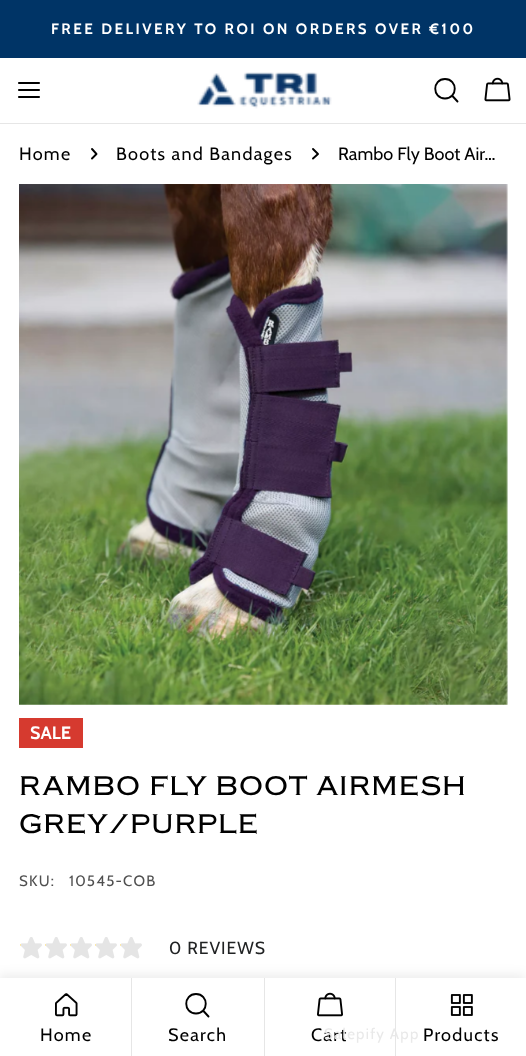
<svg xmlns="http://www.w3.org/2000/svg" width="526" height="1056">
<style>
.a{font:bold 15px Cabin;letter-spacing:2.5px;fill:#fff}
.b{font:18px Cabin;letter-spacing:1.25px;fill:#000}
.c{font:18px Cabin;fill:#000}
.d{font:bold 18px Cabin;fill:#fff}
.e{font:500 28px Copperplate;letter-spacing:1.1px;fill:#000}
.f{font:15px Cabin;letter-spacing:1.25px;fill:#4f4f4f}
.g{font:17.5px Cabin;letter-spacing:1px;fill:#202223}
.h{font:15px Cabin;letter-spacing:1.25px;fill:#e9e9e9}
</style>
<rect width="100%" height="100%" fill="#fff"/>
<path fill="#003466" d="M0 0h526v58H0z"/>
<path fill="#e6e6e6" d="M0 123h526v1H0z"/>
<path fill="none" stroke="#000" stroke-width="2.1" stroke-linecap="round" stroke-linejoin="round" d="M19 90h20m-20-7h20m-20 14h20"/>
<image href="1.png" x="197" y="72" width="135" height="37"/>
<path fill="none" stroke="#000" stroke-width="1.9" stroke-linecap="round" stroke-linejoin="round" d="M445 98.5c13 0 13-19.5 0-19.5c-13 0-13 19.5 0 19.5zm7-3l5.5 6"/>
<image href="2.png" x="484" y="77" width="27" height="25"/>
<path fill="none" stroke="#000" stroke-width="1.9" stroke-linecap="round" stroke-linejoin="round" d="M92 149l4.5 5l-4.5 4.5"/>
<path fill="none" stroke="#000" stroke-width="1.9" stroke-linecap="round" stroke-linejoin="round" d="M313 149l5 5l-5 4.5"/>
<image href="3.png" x="19" y="184" width="489" height="521"/>
<path fill="#d63a2f" d="M19 718h64v30H19z"/>
<image href="4.png" x="20" y="937" width="22" height="22"/>
<image href="4.png" x="45" y="937" width="22" height="22"/>
<image href="4.png" x="70" y="937" width="22" height="22"/>
<image href="4.png" x="95" y="937" width="22" height="22"/>
<image href="4.png" x="120" y="937" width="22" height="22"/>
<path fill="#00000014" filter="blur(6px)" d="M-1 975h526v79H-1z"/>
<path fill="#fff" d="M0 978h526v78H0z"/>
<image href="5.png" x="55" y="993" width="23" height="24"/>
<path fill="#e6e6e6" d="M131 978h1v78H131z"/>
<path fill="none" stroke="#000" stroke-width="1.9" stroke-linecap="round" stroke-linejoin="round" d="M196 1013.5c13 0 13-19.5 0-19.5c-13 0-13 19.5 0 19.5zm7-3l5.5 6"/>
<path fill="#e6e6e6" d="M264 978h1v78H264z"/>
<image href="6.png" x="317" y="992" width="26" height="25"/>
<path fill="#e6e6e6" d="M395 978h1v78H395z"/>
<image href="7.png" x="450" y="994" width="23" height="22"/>
<text class="a" x="51" y="34">FREE DELIVERY TO ROI ON ORDERS OVER €100</text>
<text class="b" x="19" y="160">Home</text>
<text class="b" x="116" y="160">Boots and Bandages</text>
<text class="c" x="338" y="160">Rambo Fly Boot Air…</text>
<text class="d" x="30" y="739">SALE</text>
<text class="e" x="19" y="795">RAMBO FLY BOOT AIRMESH</text>
<text class="e" x="19" y="833">GREY/PURPLE</text>
<text class="f" x="19" y="886">SKU:</text>
<text class="f" x="69" y="886">10545-COB</text>
<text class="g" x="169" y="954">0 REVIEWS</text>
<text class="b" x="40" y="1041">Home</text>
<text class="b" x="168" y="1041">Search</text>
<text class="b" x="311" y="1041">Cart</text>
<text class="b" x="423" y="1041">Products</text>
<text class="h" x="324" y="1039">Salepify App</text>
</svg>
